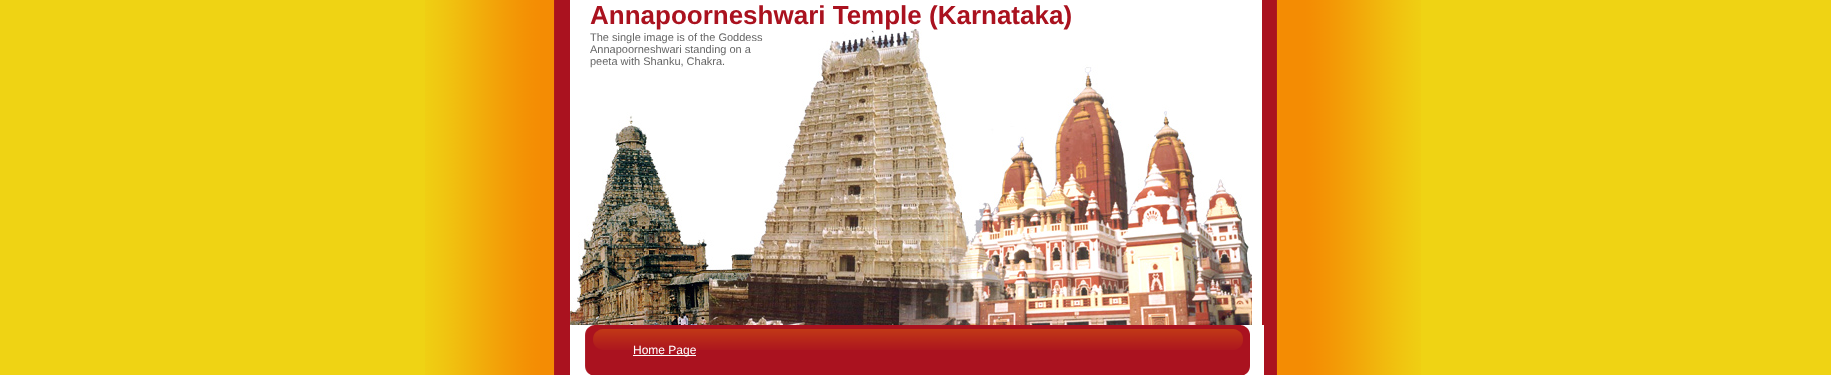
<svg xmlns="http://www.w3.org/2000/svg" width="1831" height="375">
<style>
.a{font:bold 26px Liberation Sans;fill:#aa121f}
.b{font:11px Liberation Sans;fill:#666}
.c{font:12px Liberation Sans;fill:#fff}
</style>
<rect width="100%" height="100%" fill="#efd314"/>
<image href="1.png" x="425" y="0" width="996" height="375"/>
<path fill="#aa121f" d="M1262 0h1v325H1262z"/>
<path fill="#aa121f" d="M568 0h2v375H568z"/>
<image href="2.png" x="570" y="29" width="682" height="296"/>
<image href="3.png" x="585" y="325" width="679" height="50"/>
<path fill="#fff" d="M633 355h63v1H633z"/>
<text class="a" x="590" y="24">Annapoorneshwari Temple (Karnataka)</text>
<text class="b" x="590" y="41">The single image is of the Goddess</text>
<text class="b" x="590" y="53">Annapoorneshwari standing on a</text>
<text class="b" x="590" y="65">peeta with Shanku, Chakra.</text>
<text class="c" x="633" y="354">Home Page</text>
</svg>
